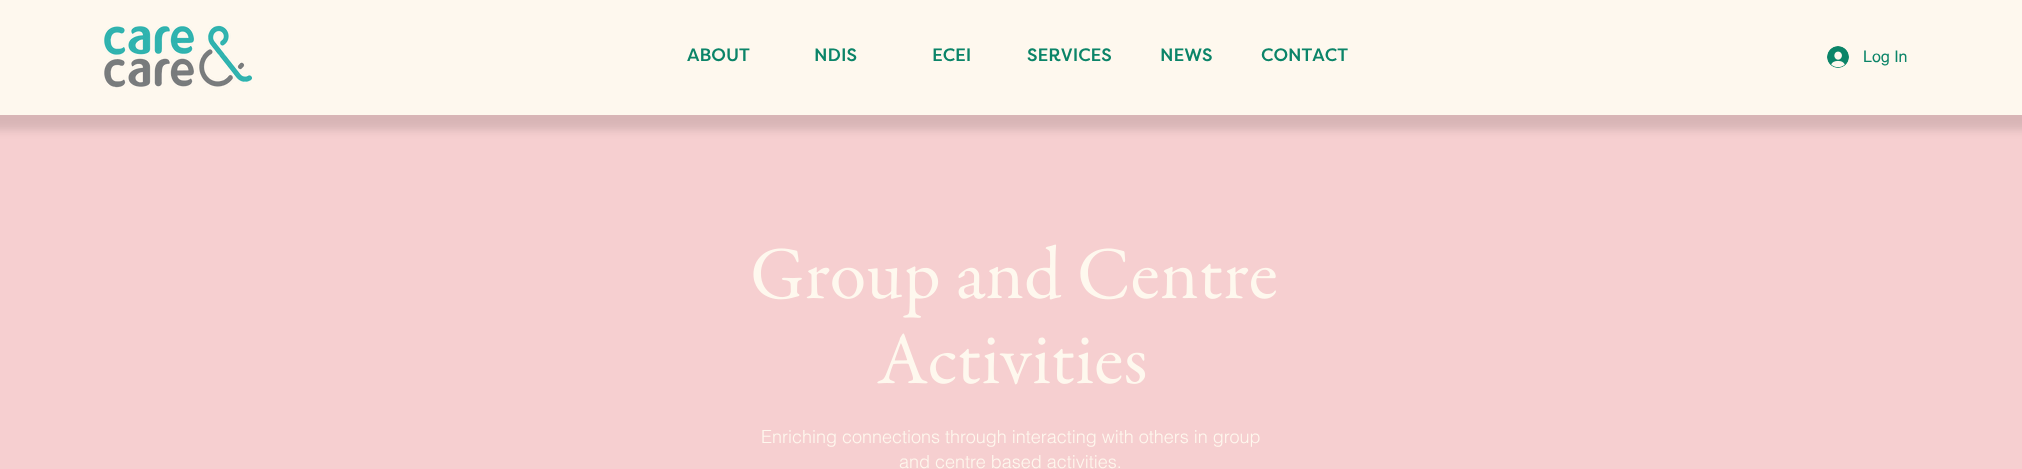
<svg xmlns="http://www.w3.org/2000/svg" width="2022" height="469">
<style>
.a{font:500 18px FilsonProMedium;fill:#0b8468}
.b{font:16px helvetica;fill:#0b8468}
.c{font:300 18px helvetica;fill:#fef8ee}
</style>
<rect width="100%" height="100%" fill="#f6cfd0"/>
<path fill="#0000001f" filter="blur(4.5px)" d="M-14 -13h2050v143H-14z"/>
<path fill="#fef8ee" d="M0 0h2022v115H0z"/>
<image href="1.png" x="104" y="25" width="148" height="63"/>
<image href="2.png" x="1827" y="46" width="22" height="22"/>
<image href="3.png" x="753" y="244" width="523" height="74"/>
<image href="4.png" x="877" y="333" width="269" height="52"/>
<text class="a" x="687" y="61">ABOUT</text>
<text class="a" x="814" y="61">NDIS</text>
<text class="a" x="932" y="61">ECEI</text>
<text class="a" x="1027" y="61">SERVICES</text>
<text class="a" x="1160" y="61">NEWS</text>
<text class="a" x="1261" y="61">CONTACT</text>
<text class="b" x="1863" y="62">Log In</text>
<text class="c" x="761" y="443">Enriching connections through interacting with others in group</text>
<text class="c" x="899" y="468">and centre based activities.</text>
</svg>
